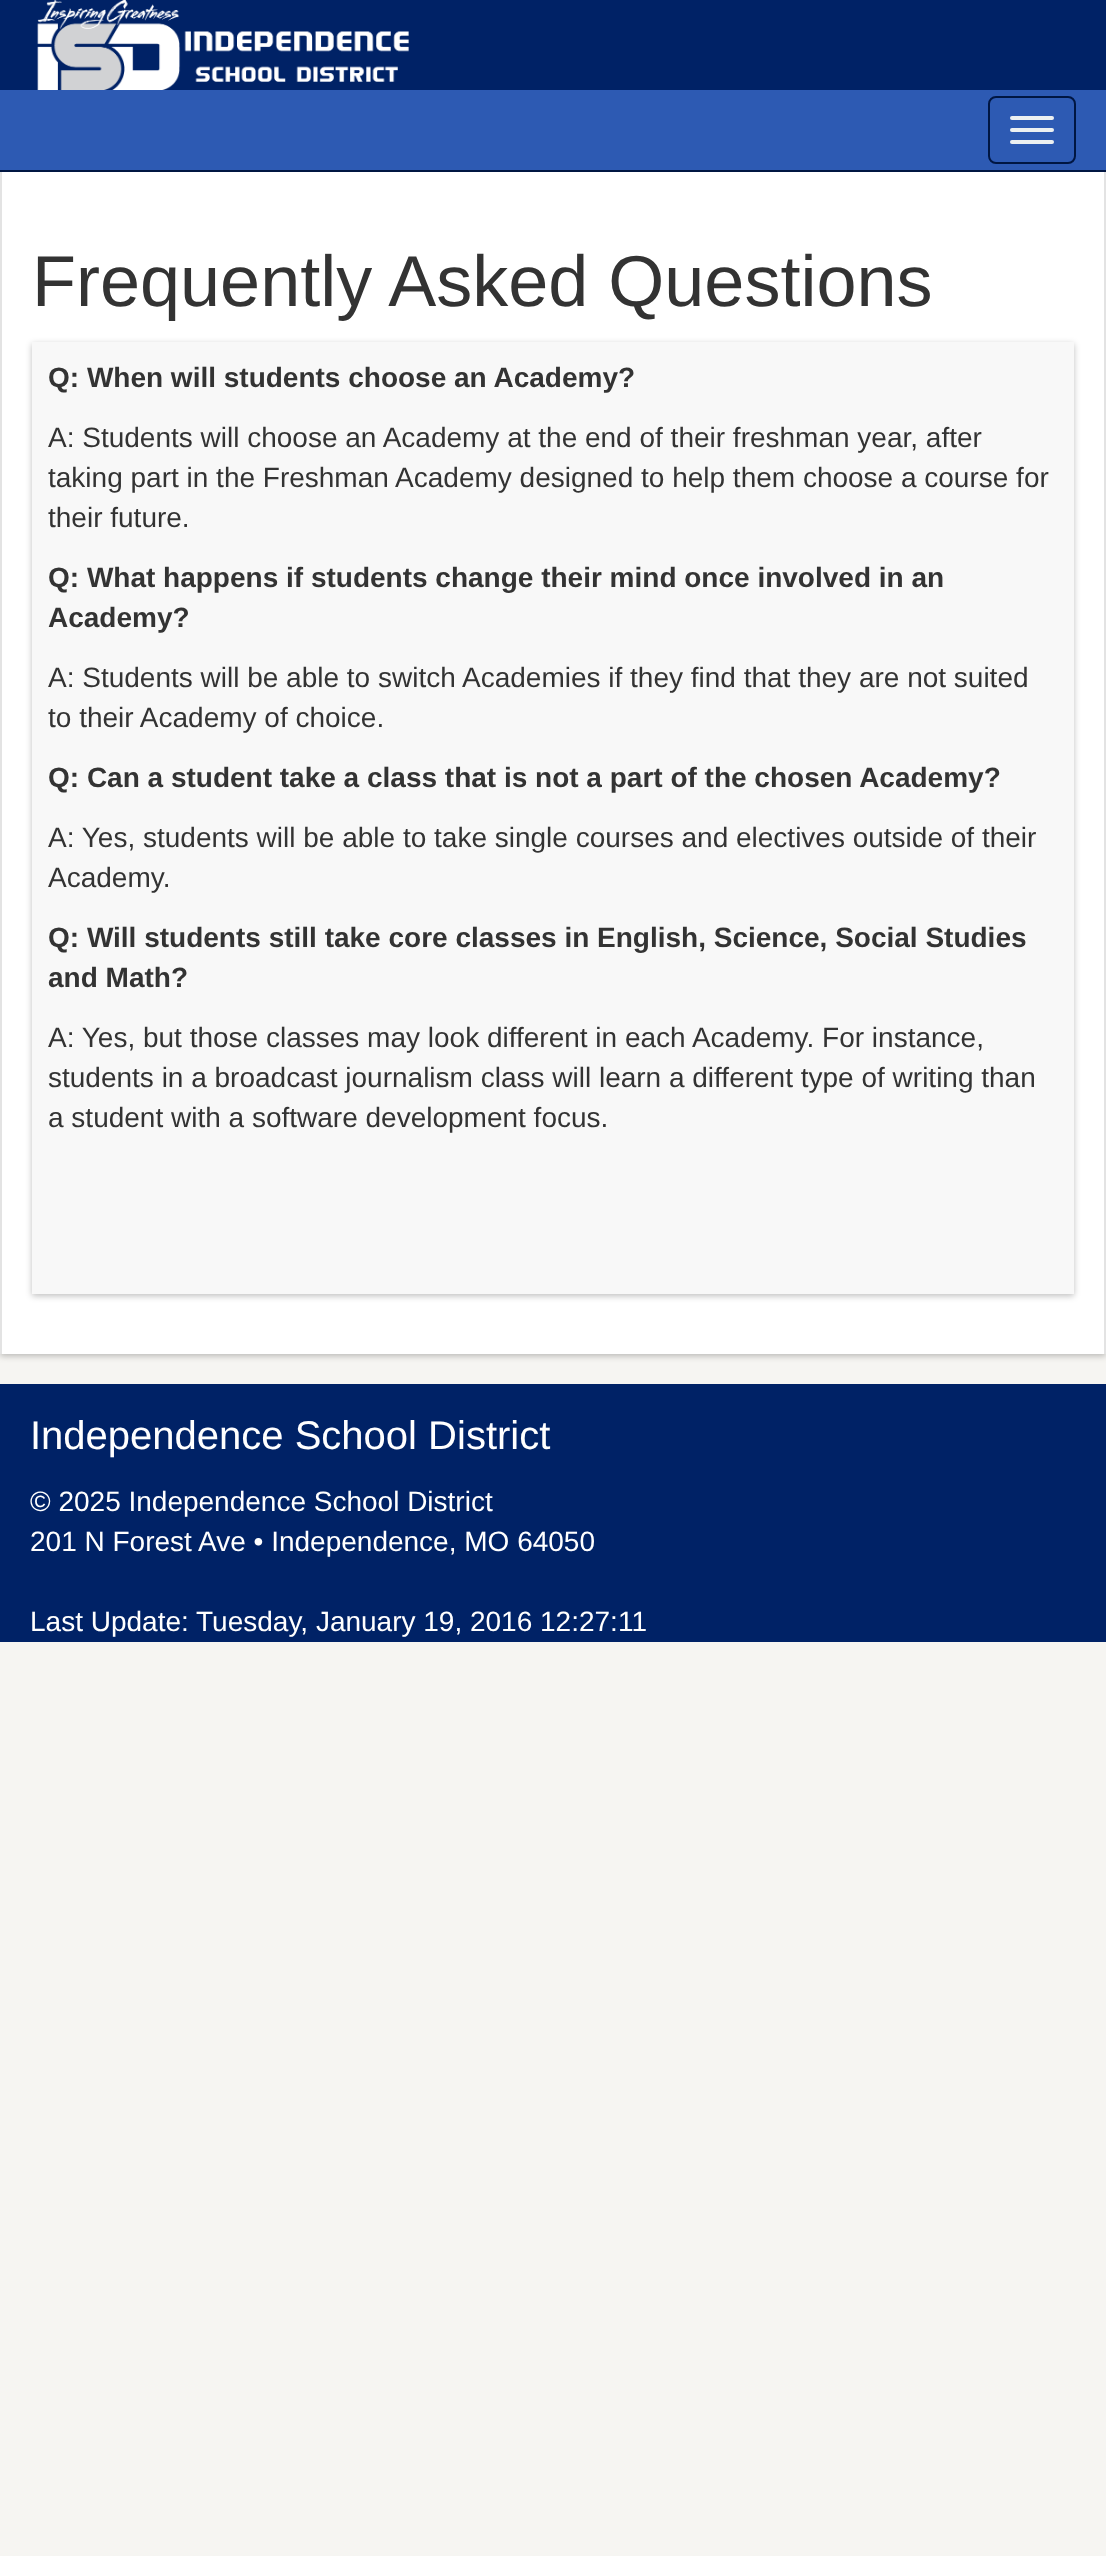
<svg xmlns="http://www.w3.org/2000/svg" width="1106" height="2556">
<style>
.a{font:72px Liberation Sans;fill:#333}
.b{font:bold 28px Liberation Sans;fill:#333}
.c{font:28px Liberation Sans;fill:#333}
.d{font:40px Liberation Sans;fill:#fff}
.e{font:28px Liberation Sans;fill:#fff}
</style>
<rect width="100%" height="100%" fill="#f6f5f2"/>
<path fill="#026" d="M0 0h1106v90H0z"/>
<image href="1.png" x="37" y="0" width="372" height="90"/>
<path fill="#00000040" filter="blur(3px)" d="M0 174h1106v1182H0z"/>
<path fill="#2d5ab3" d="M0 90h1106v80H0z"/>
<path fill="#001642" d="M0 170h1106v2H0z"/>
<rect fill="none" stroke="#001642" stroke-width="2" x="989" y="97" width="86" height="66" rx="7"/>
<rect fill="#ecf0f1" x="1010" y="116" width="44" height="4" rx="2"/>
<rect fill="#ecf0f1" x="1010" y="128" width="44" height="4" rx="2"/>
<rect fill="#ecf0f1" x="1010" y="140" width="44" height="4" rx="2"/>
<path fill="#fff" d="M2 172h1102v1182H2z"/>
<path fill="#e3e3e3" d="M1104 172h2v1182H1104z"/>
<path fill="#e3e3e3" d="M0 172h2v1182H0z"/>
<path fill="#00000040" filter="blur(3px)" d="M32 344h1042v952H32z"/>
<path fill="#f8f8f8" d="M32 342h1042v952H32z"/>
<path fill="#026" d="M0 1384h1106v258H0z"/>
<text class="a" x="32" y="306">Frequently Asked Questions</text>
<text class="b" x="48" y="387">Q: When will students choose an Academy?</text>
<text class="c" x="48" y="447">A: Students will choose an Academy at the end of their freshman year, after</text>
<text class="c" x="48" y="487">taking part in the Freshman Academy designed to help them choose a course for</text>
<text class="c" x="48" y="527">their future.</text>
<text class="b" x="48" y="587">Q: What happens if students change their mind once involved in an</text>
<text class="b" x="48" y="627">Academy?</text>
<text class="c" x="48" y="687">A: Students will be able to switch Academies if they find that they are not suited</text>
<text class="c" x="48" y="727">to their Academy of choice.</text>
<text class="b" x="48" y="787">Q: Can a student take a class that is not a part of the chosen Academy?</text>
<text class="c" x="48" y="847">A: Yes, students will be able to take single courses and electives outside of their</text>
<text class="c" x="48" y="887">Academy.</text>
<text class="b" x="48" y="947">Q: Will students still take core classes in English, Science, Social Studies</text>
<text class="b" x="48" y="987">and Math?</text>
<text class="c" x="48" y="1047">A: Yes, but those classes may look different in each Academy. For instance,</text>
<text class="c" x="48" y="1087">students in a broadcast journalism class will learn a different type of writing than</text>
<text class="c" x="48" y="1127">a student with a software development focus.</text>
<text class="d" x="30" y="1449">Independence School District</text>
<text class="e" x="30" y="1511">© 2025 Independence School District</text>
<text class="e" x="30" y="1551">201 N Forest Ave • Independence, MO 64050</text>
<text class="e" x="30" y="1631">Last Update: Tuesday, January 19, 2016 12:27:11</text>
</svg>
